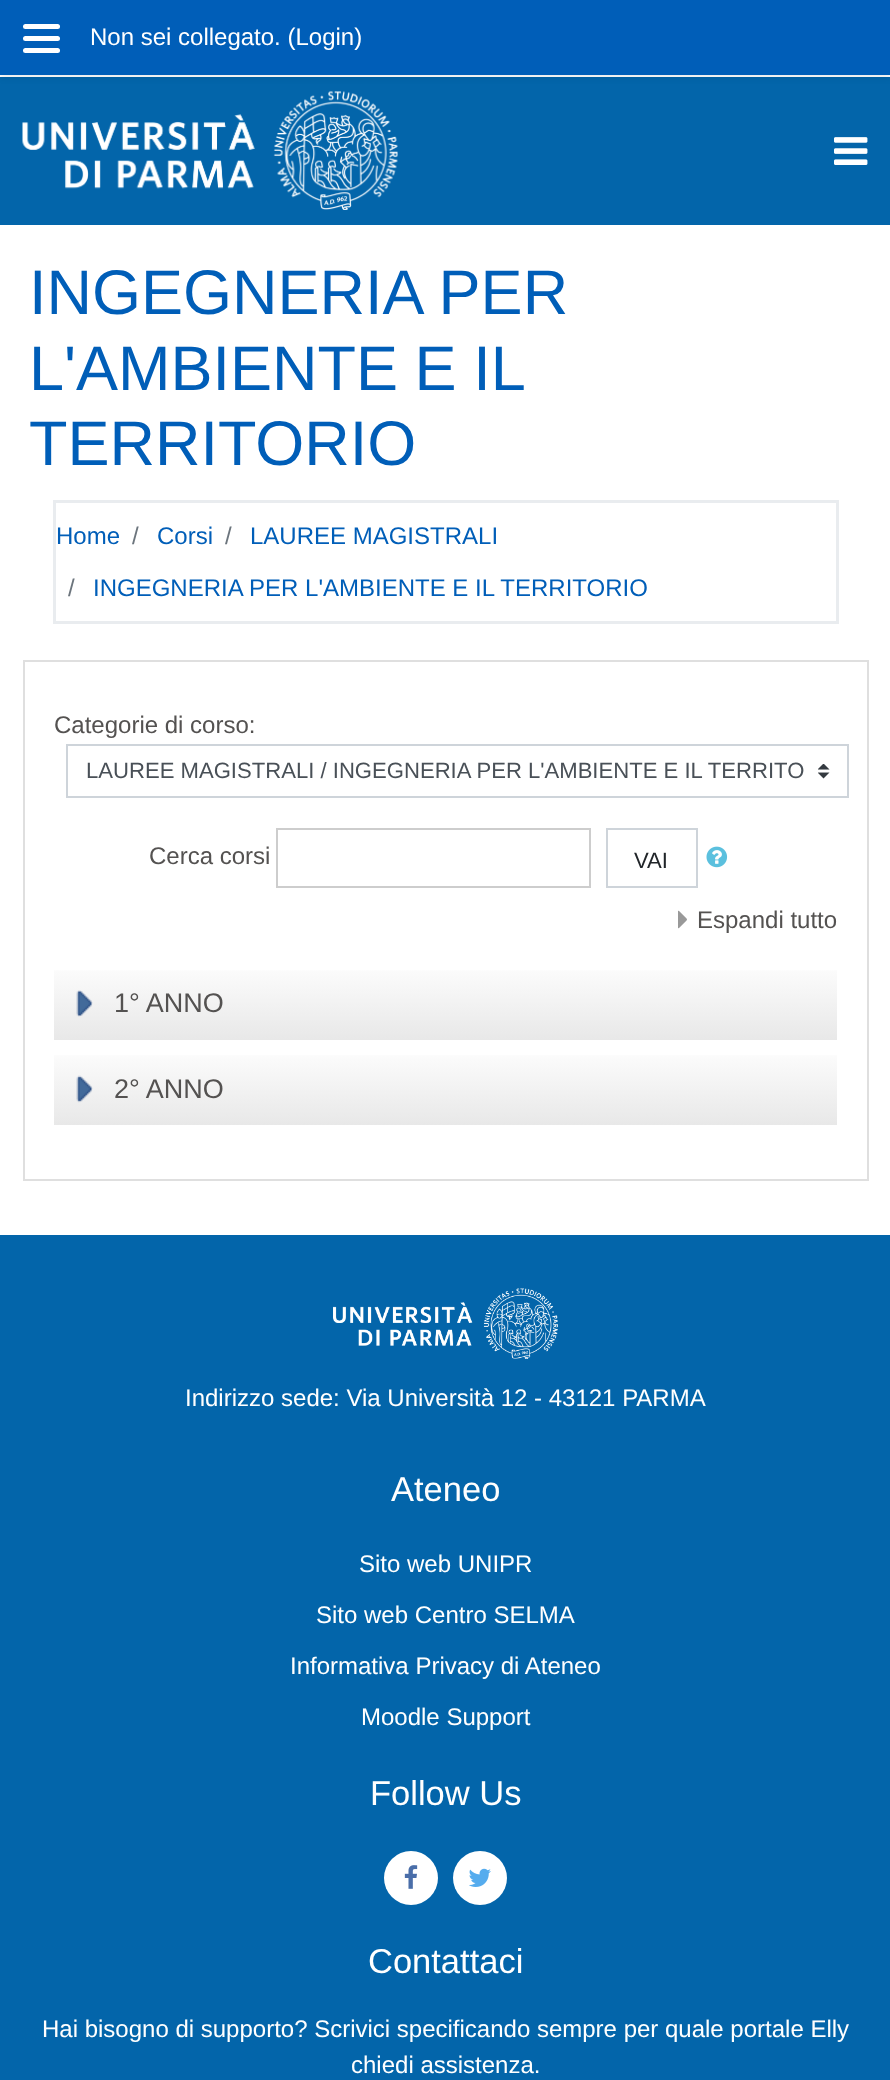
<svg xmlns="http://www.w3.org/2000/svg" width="890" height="2080">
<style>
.a{font:24px Liberation Sans;fill:#fff}
.b{font:63px Liberation Sans;fill:#005eb8}
.c{font:24px Liberation Sans;fill:#005eb8}
.d{font:24px Liberation Sans;fill:#6c757d}
.e{font:24px Liberation Sans;fill:#545251}
.f{font:22.1px Liberation Sans;fill:#495057}
.g{font:22.1px Liberation Sans;fill:#212529}
.h{font:27px Liberation Sans;fill:#545251}
.i{font:34.5px Liberation Sans;fill:#fff}
</style>
<defs>
<linearGradient id="g1" gradientUnits="userSpaceOnUse" x1="446" y1="968" x2="446" y2="1040"><stop offset="0" stop-color="#fff"/><stop offset="0.05" stop-color="#fbfbfb"/><stop offset="1" stop-color="#e8e8e8"/></linearGradient>
<linearGradient id="g2" gradientUnits="userSpaceOnUse" x1="446" y1="1053" x2="446" y2="1125"><stop offset="0" stop-color="#fff"/><stop offset="0.05" stop-color="#fbfbfb"/><stop offset="1" stop-color="#e8e8e8"/></linearGradient>
</defs>
<rect width="100%" height="100%" fill="#fff"/>
<path fill="#0365aa" d="M0 77h890v148H0z"/>
<path fill="#00000014" filter="blur(3px)" d="M0 3h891v75H0z"/>
<path fill="#005eb8" d="M0 0h890v75H0z"/>
<rect fill="#fff" x="23" y="24" width="37" height="5" rx="2.5"/>
<rect fill="#fff" x="23" y="36" width="37" height="5" rx="2.5"/>
<rect fill="#fff" x="23" y="48" width="37" height="5" rx="2.5"/>
<image href="1.png" x="22" y="91" width="376" height="119"/>
<image href="2.png" x="834" y="137" width="34" height="28"/>
<path fill="none" stroke="#e9ecef" stroke-width="3" d="M54.5 501.5h783v121H54.5z"/>
<path fill="none" stroke="#dfdfdf" stroke-width="2" d="M24 661h844v519H24z"/>
<image href="3.png" x="818" y="764" width="12" height="15"/>
<path fill="none" stroke="#ced4da" stroke-width="2" d="M67 745h781v52H67z"/>
<path fill="none" stroke="#cdcdcd" stroke-width="2" d="M277 829h313v58H277z"/>
<path fill="none" stroke="#ced4da" stroke-width="2" d="M607 829h90v58H607z"/>
<image href="4.png" x="706" y="846" width="22" height="22"/>
<image href="5.png" x="678" y="910" width="9" height="19"/>
<path fill="url(#g1)" d="M54 970h783v70H54z"/>
<image href="6.png" x="76" y="990" width="17" height="27"/>
<path fill="url(#g2)" d="M54 1055h783v70H54z"/>
<image href="7.png" x="76" y="1075" width="17" height="28"/>
<path fill="#0365aa" d="M0 1235h890v845H0z"/>
<image href="8.png" x="333" y="1288" width="225" height="71"/>
<circle fill="#fff" cx="411" cy="1878" r="27"/>
<image href="9.png" x="404" y="1865" width="14" height="24"/>
<circle fill="#fff" cx="480" cy="1878" r="27"/>
<image href="10.png" x="469" y="1868" width="22" height="19"/>
<text class="a" x="90" y="45">Non sei collegato. (Login)</text>
<text class="b" x="29" y="314">INGEGNERIA PER</text>
<text class="b" x="29" y="390" word-spacing="-1">L'AMBIENTE E IL</text>
<text class="b" x="29" y="465">TERRITORIO</text>
<text class="c" x="56" y="544">Home</text>
<text class="d" x="132" y="544">/</text>
<text class="c" x="157" y="544">Corsi</text>
<text class="d" x="225" y="544">/</text>
<text class="c" x="250" y="544">LAUREE MAGISTRALI</text>
<text class="d" x="68" y="596">/</text>
<text class="c" x="93" y="596">INGEGNERIA PER L'AMBIENTE E IL TERRITORIO</text>
<text class="e" x="54" y="733">Categorie di corso:</text>
<text class="f" x="86" y="778">LAUREE MAGISTRALI / INGEGNERIA PER L'AMBIENTE E IL TERRITO</text>
<text class="e" x="149" y="864">Cerca corsi</text>
<text class="g" x="634" y="868">VAI</text>
<text class="e" x="697" y="928">Espandi tutto</text>
<text class="h" x="114" y="1012">1° ANNO</text>
<text class="h" x="114" y="1098">2° ANNO</text>
<text class="a" x="185" y="1406">Indirizzo sede: Via Università 12 - 43121 PARMA</text>
<text class="i" x="391" y="1501">Ateneo</text>
<text class="a" x="359" y="1572">Sito web UNIPR</text>
<text class="a" x="316" y="1623">Sito web Centro SELMA</text>
<text class="a" x="290" y="1674">Informativa Privacy di Ateneo</text>
<text class="a" x="361" y="1725">Moodle Support</text>
<text class="i" x="370" y="1805">Follow Us</text>
<text class="i" x="368" y="1973">Contattaci</text>
<text class="a" x="42" y="2037">Hai bisogno di supporto? Scrivici specificando sempre per quale portale Elly</text>
<text class="a" x="351" y="2073">chiedi assistenza.</text>
</svg>
